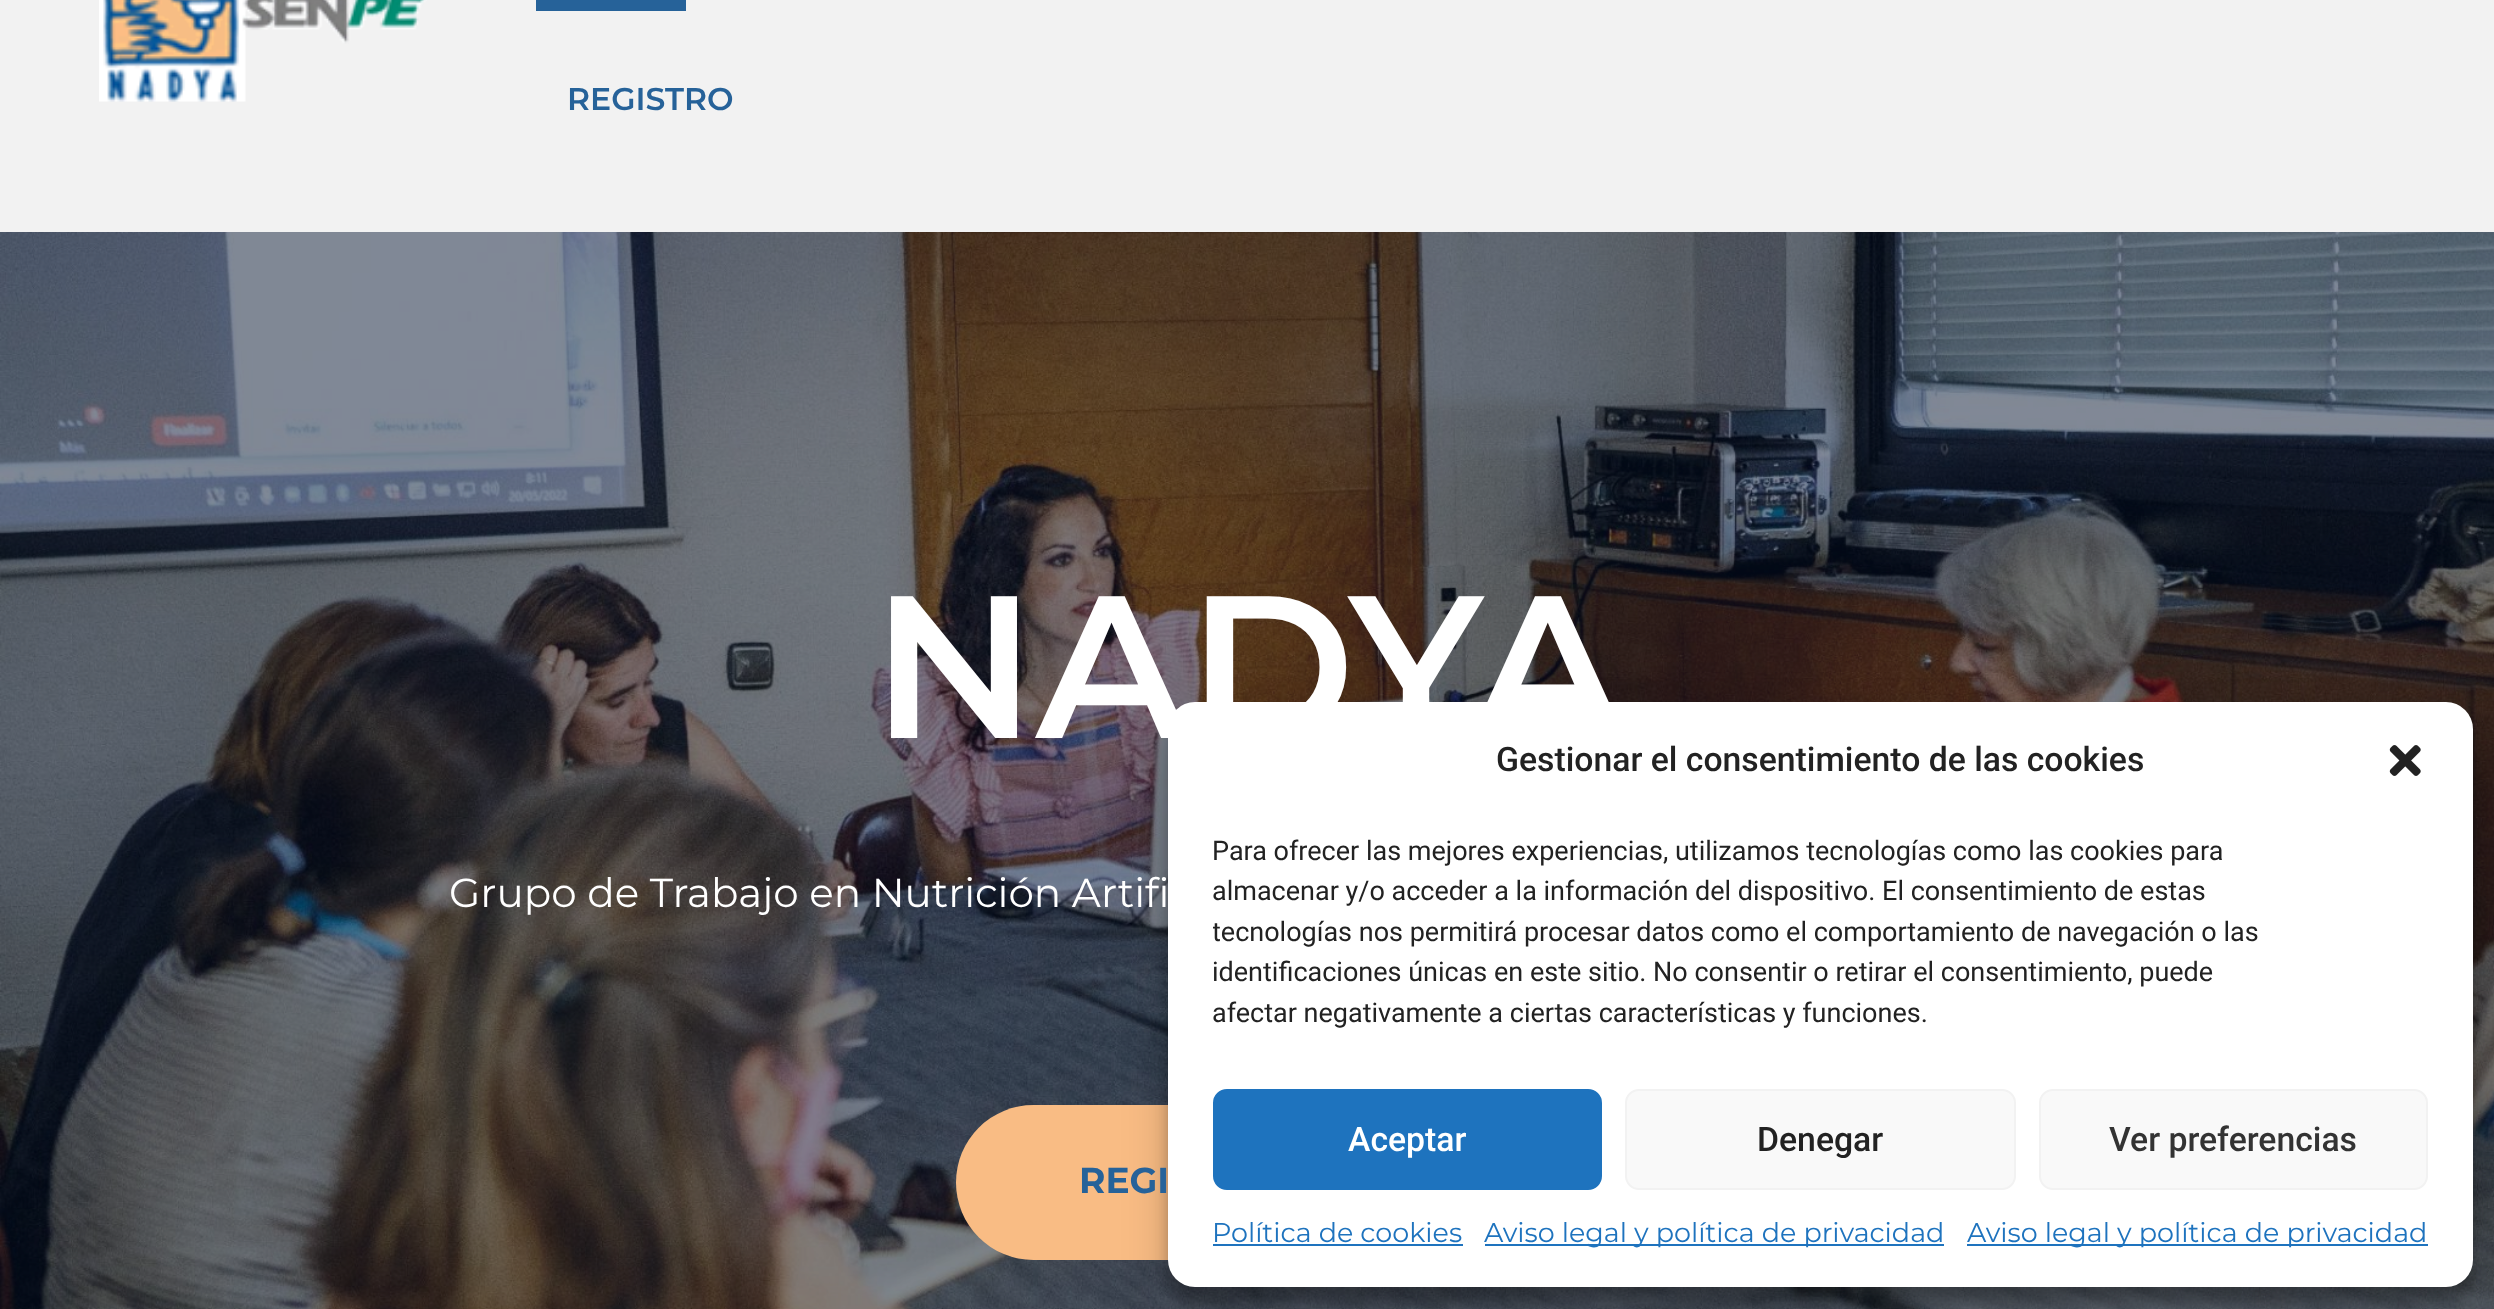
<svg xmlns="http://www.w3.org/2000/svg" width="2494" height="1309">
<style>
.a{font:600 31.5px Montserrat;fill:#266299}
.b{font:600 202.5px Montserrat;fill:#fff}
.c{font:40.5px Montserrat;fill:#fff}
.d{font:bold 36px Montserrat;fill:#266299}
.e{font:500 33.75px Roboto;fill:#222}
.f{font:27px Roboto;fill:#222}
.g{font:500 33.75px Roboto;fill:#fff}
.h{font:500 33.75px Roboto;fill:#333}
.i{font:27px Montserrat;fill:#1e73be}
</style>
<defs>
<clipPath id="clip1"><path d="M1213 830h1215v214H1213z"/></clipPath>
</defs>
<rect width="100%" height="100%" fill="#fff"/>
<path fill="#f2f2f2" d="M0 0h2494v232H0z"/>
<image href="1.png" x="99" y="0" width="328" height="102"/>
<path fill="#266299" d="M536 0h150v11H536z"/>
<image href="2.png" x="0" y="232" width="2494" height="1077"/>
<rect fill="#f9bc84" x="956" y="1105" width="583" height="155" rx="77.5"/>
<rect fill="#0000003b" filter="blur(7px)" x="1168" y="716" width="1305" height="585" rx="27"/>
<rect fill="#00000030" filter="blur(22.5px)" x="1168" y="725" width="1305" height="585" rx="27"/>
<rect fill="#fff" x="1168" y="702" width="1305" height="585" rx="27"/>
<image href="3.png" x="2389" y="745" width="32" height="31"/>
<rect fill="#1e73be" stroke="#1e73be" stroke-width="2" x="1214" y="1090" width="387" height="99" rx="13"/>
<rect fill="#f9f9f9" stroke="#f2f2f2" stroke-width="2" x="1626" y="1090" width="389" height="99" rx="13"/>
<rect fill="#f9f9f9" stroke="#f2f2f2" stroke-width="2" x="2040" y="1090" width="387" height="99" rx="13"/>
<path fill="#1e73be" d="M1213 1244h250v2H1213z"/>
<path fill="#1e73be" d="M1485 1244h459v2H1485z"/>
<path fill="#1e73be" d="M1967 1244h461v2H1967z"/>
<text class="a" x="567" y="110">REGISTRO</text>
<text class="b" x="872" y="738">NADYA</text>
<text class="c" x="449" y="907">Grupo de Trabajo en Nutrición Artifi</text>
<text class="d" x="1079" y="1193">REGI</text>
<text class="e" x="1496" y="771">Gestionar el consentimiento de las cookies</text>
<text class="f" x="1212" y="860">Para ofrecer las mejores experiencias, utilizamos tecnologías como las cookies para</text>
<text class="f" x="1212" y="900">almacenar y/o acceder a la información del dispositivo. El consentimiento de estas</text>
<g clip-path="url(#clip1)">
<text class="f" x="1212" y="941">tecnologías nos permitirá procesar datos como el comportamiento de navegación o las</text>
</g>
<text class="f" x="1212" y="981">identificaciones únicas en este sitio. No consentir o retirar el consentimiento, puede</text>
<text class="f" x="1212" y="1022">afectar negativamente a ciertas características y funciones.</text>
<text class="g" x="1348" y="1151">Aceptar</text>
<text class="e" x="1757" y="1151">Denegar</text>
<text class="h" x="2109" y="1151">Ver preferencias</text>
<text class="i" x="1212" y="1242">Política de cookies</text>
<text class="i" x="1484" y="1242">Aviso legal y política de privacidad</text>
<text class="i" x="1967" y="1242">Aviso legal y política de privacidad</text>
</svg>
